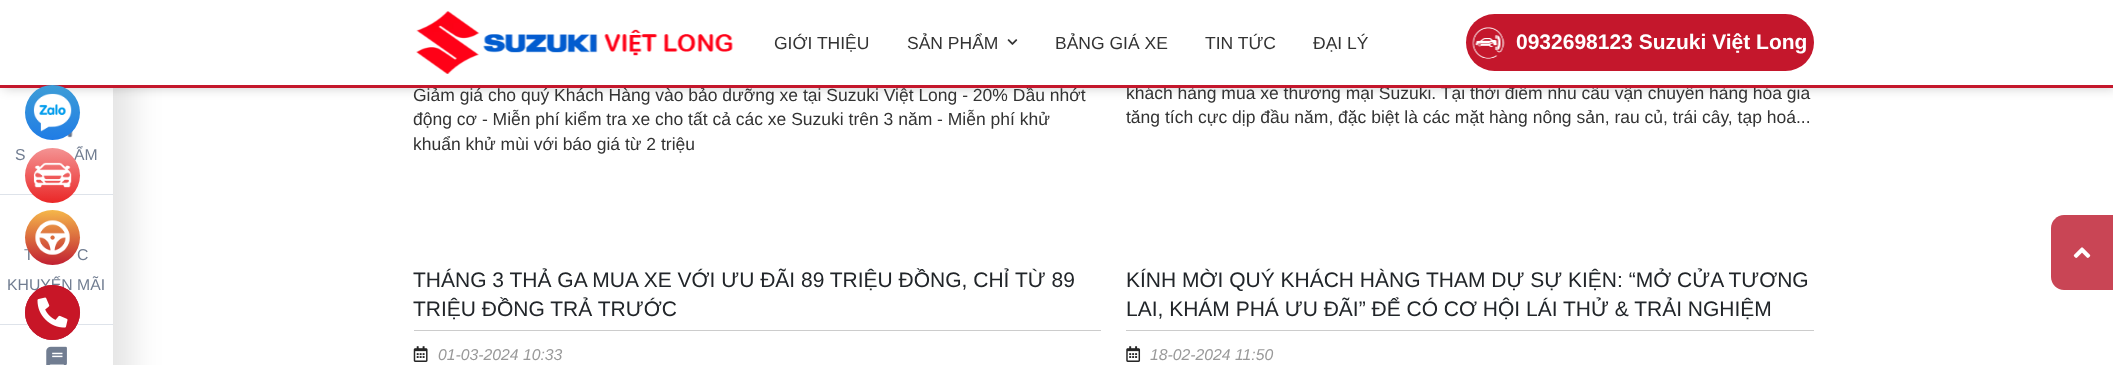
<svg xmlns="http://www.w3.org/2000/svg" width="2113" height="365">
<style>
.a{font:17.5px Liberation Sans;fill:#333}
.b{font:bold 21px Liberation Sans;fill:#fff}
.c{font:21px Liberation Sans;fill:#212529}
.d{font:italic 15.75px Liberation Sans;fill:#999}
.e{font:15.75px Liberation Sans;fill:#717d91}
</style>
<defs>
<linearGradient id="g1" gradientUnits="userSpaceOnUse" x1="53" y1="85" x2="53" y2="140"><stop offset="0" stop-color="#3d9dd7"/><stop offset="1" stop-color="#207ce5"/></linearGradient>
<linearGradient id="g2" gradientUnits="userSpaceOnUse" x1="53" y1="148" x2="53" y2="203"><stop offset="0" stop-color="#f49393"/><stop offset="1" stop-color="#ea2727"/></linearGradient>
<linearGradient id="g3" gradientUnits="userSpaceOnUse" x1="53" y1="210" x2="53" y2="265"><stop offset="0" stop-color="#f5b74a"/><stop offset="1" stop-color="#c12032"/></linearGradient>
</defs>
<rect width="100%" height="100%" fill="#fff"/>
<path fill="#0000001a" filter="blur(15.5px)" d="M-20 68h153v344H-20z"/>
<path fill="#fff" d="M0 88h113v277H0z"/>
<path fill="#00000033" filter="blur(6px)" d="M3 0h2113v88H3z"/>
<path fill="#ccc" d="M414 330h687v1H414z"/>
<image href="5.png" x="413" y="346" width="15" height="16"/>
<path fill="#ccc" d="M1126 330h688v1H1126z"/>
<image href="6.png" x="1126" y="346" width="15" height="16"/>
<path fill="#dee3ea" d="M0 194h113v1H0z"/>
<image href="7.png" x="42" y="130" width="31" height="8"/>
<path fill="#dee3ea" d="M0 324h113v1H0z"/>
<image href="8.png" x="46" y="346" width="21" height="19"/>
<path fill="#c94555" d="M2064 215h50v75h-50c-7 0-13-6-13-13v-49c0-7 6-13 13-13z"/>
<image href="11.png" x="2073" y="247" width="18" height="11"/>
<text class="a" x="413" y="101">Giảm giá cho quý Khách Hàng vào bảo dưỡng xe tại Suzuki Việt Long - 20% Dầu nhớt</text>
<text class="a" x="413" y="125">động cơ - Miễn phí kiểm tra xe cho tất cả các xe Suzuki trên 3 năm - Miễn phí khử</text>
<text class="a" x="413" y="150">khuẩn khử mùi với báo giá từ 2 triệu</text>
<text class="a" x="1126" y="99">khách hàng mua xe thương mại Suzuki. Tại thời điểm nhu cầu vận chuyển hàng hóa gia</text>
<path fill="#c4172c" d="M0 85h2113v3H0z"/>
<circle fill="url(#g1)" cx="52.5" cy="112.5" r="27.5"/>
<image href="4.png" x="33" y="93" width="39" height="39"/>
<path fill="#fff" d="M0 0h2113v85H0z"/>
<text class="a" x="1313" y="49">ĐẠI LÝ</text>
<text class="a" x="1205" y="49">TIN TỨC</text>
<text class="a" x="1055" y="49">BẢNG GIÁ XE</text>
<image href="2.png" x="1007" y="39" width="11" height="6"/>
<text class="a" x="907" y="49">SẢN PHẨM</text>
<text class="a" x="774" y="49">GIỚI THIỆU</text>
<rect fill="#c4172c" x="1466" y="14" width="348" height="57" rx="28.5"/>
<text class="b" x="1516" y="49">0932698123 Suzuki Việt Long</text>
<image href="3.png" x="1472" y="27" width="33" height="32"/>
<image href="1.png" x="416" y="11" width="317" height="63"/>
<text class="a" x="1126" y="123">tăng tích cực dịp đầu năm, đặc biệt là các mặt hàng nông sản, rau củ, trái cây, tạp hoá...</text>
<text class="c" x="413" y="287">THÁNG 3 THẢ GA MUA XE VỚI ƯU ĐÃI 89 TRIỆU ĐỒNG, CHỈ TỪ 89</text>
<text class="c" x="413" y="316">TRIỆU ĐỒNG TRẢ TRƯỚC</text>
<text class="d" x="438" y="360">01-03-2024 10:33</text>
<text class="c" x="1126" y="287">KÍNH MỜI QUÝ KHÁCH HÀNG THAM DỰ SỰ KIỆN: “MỞ CỬA TƯƠNG</text>
<text class="c" x="1126" y="316">LAI, KHÁM PHÁ ƯU ĐÃI” ĐỂ CÓ CƠ HỘI LÁI THỬ &amp; TRẢI NGHIỆM</text>
<text class="d" x="1150" y="360">18-02-2024 11:50</text>
<text class="e" x="15" y="160">S</text>
<text class="e" x="74" y="160">ẨM</text>
<text class="e" x="24" y="260">T</text>
<text class="e" x="77" y="260">C</text>
<text class="e" x="7" y="290">KHUYẾN MÃI</text>
<circle fill="url(#g2)" cx="52.5" cy="175.5" r="27.5"/>
<image href="9.png" x="33" y="162" width="39" height="26"/>
<circle fill="url(#g3)" cx="52.5" cy="237.5" r="27.5"/>
<image href="10.png" x="35" y="220" width="35" height="35"/>
<circle fill="#c4172c" cx="52.5" cy="312.5" r="27.5"/>
<circle fill="#dd151533" stroke="#c4172c" cx="52.5" cy="312.5" r="27"/>
<image href="12.png" x="37" y="297" width="31" height="31"/>
</svg>
